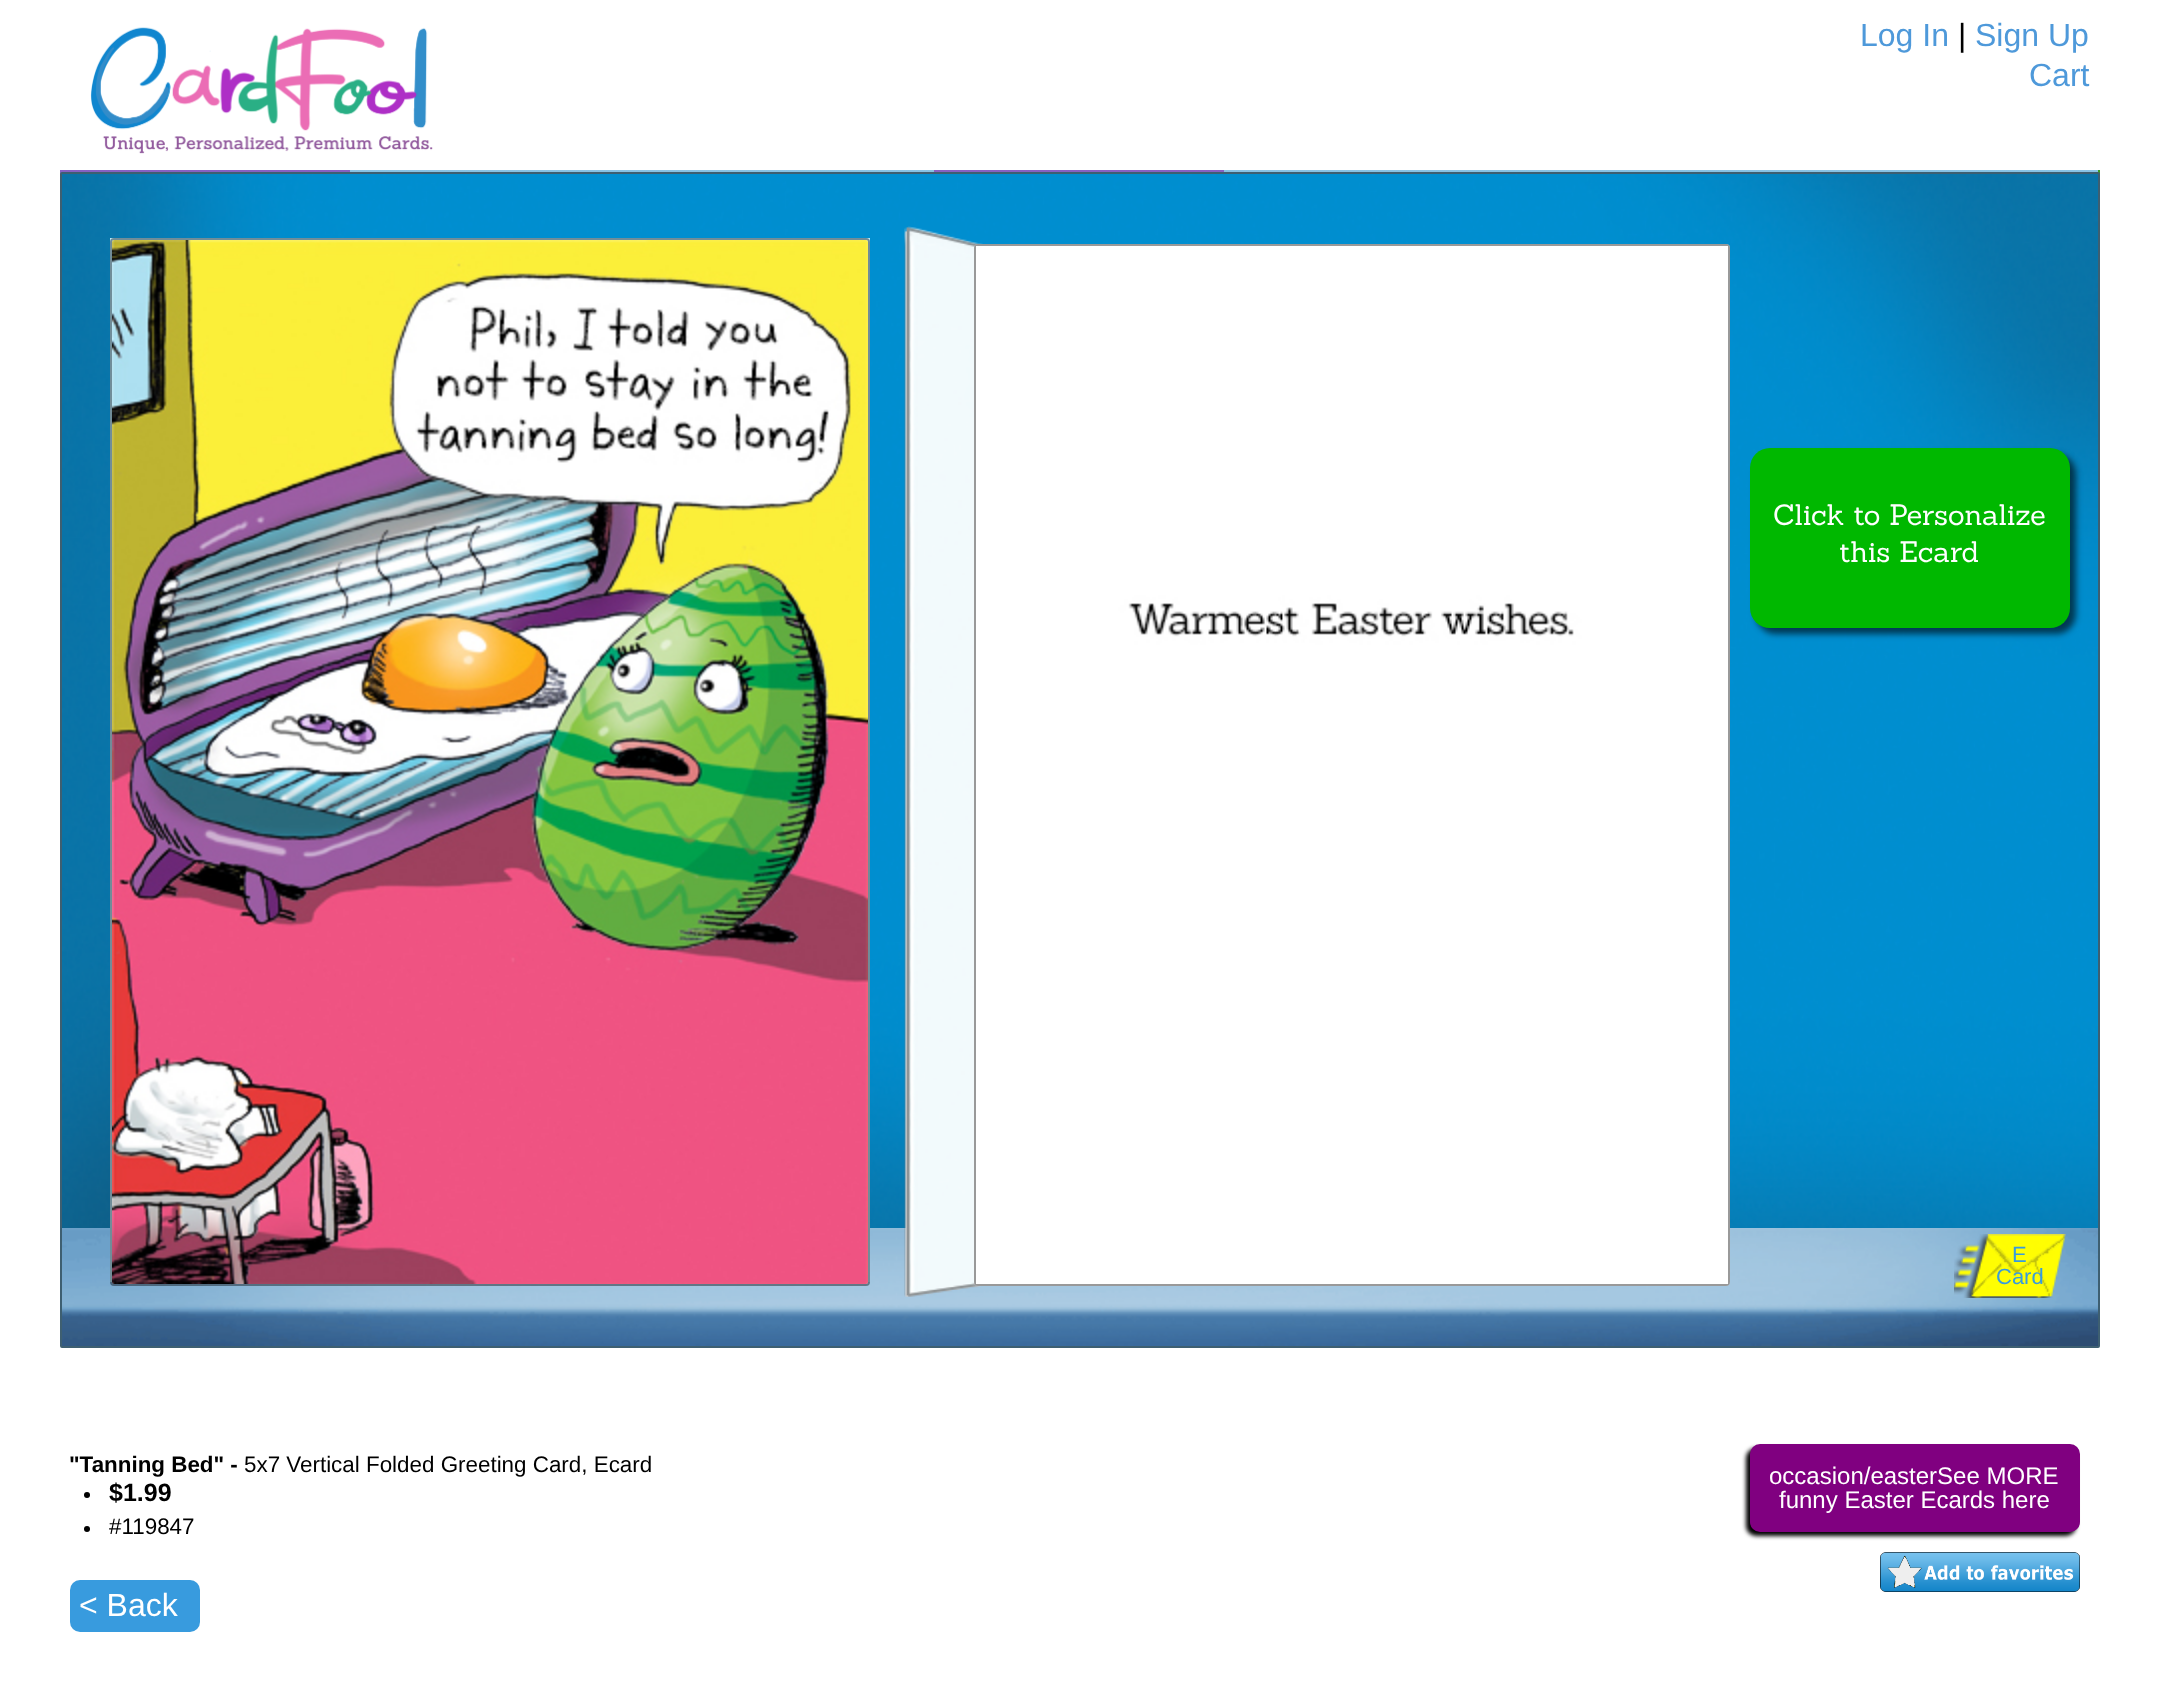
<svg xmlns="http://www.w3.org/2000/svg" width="2158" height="1681">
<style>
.a{font:32px Liberation Sans;fill:#4e99da}
.b{font:32px Liberation Sans;fill:#000}
.c{font:28.75px Sanchez;fill:#fff}
.d{font:22px Liberation Sans;fill:#389bde}
.e{font:bold 22.4px Liberation Sans;fill:#000}
.f{font:22.4px Liberation Sans;fill:#000}
.g{font:bold 25px Liberation Sans;fill:#000}
.h{font:32px Liberation Sans;fill:#fff}
.i{font:24px Liberation Sans;fill:#fff}
</style>
<defs>
<linearGradient id="g1" gradientUnits="userSpaceOnUse" x1="205" y1="170" x2="205" y2="226"><stop offset="0" stop-color="#8560c3"/><stop offset="1" stop-color="#b891cc"/></linearGradient>
<linearGradient id="g2" gradientUnits="userSpaceOnUse" x1="496" y1="170" x2="496" y2="226"><stop offset="0" stop-color="#89c4e6"/><stop offset="1" stop-color="#5b7eae"/></linearGradient>
<linearGradient id="g3" gradientUnits="userSpaceOnUse" x1="788" y1="170" x2="788" y2="226"><stop offset="0" stop-color="#89c4e6"/><stop offset="1" stop-color="#5b7eae"/></linearGradient>
<linearGradient id="g4" gradientUnits="userSpaceOnUse" x1="1079" y1="170" x2="1079" y2="226"><stop offset="0" stop-color="#8560c3"/><stop offset="1" stop-color="#b891cc"/></linearGradient>
<linearGradient id="g5" gradientUnits="userSpaceOnUse" x1="1370" y1="170" x2="1370" y2="226"><stop offset="0" stop-color="#89c4e6"/><stop offset="1" stop-color="#5b7eae"/></linearGradient>
<linearGradient id="g6" gradientUnits="userSpaceOnUse" x1="1662" y1="170" x2="1662" y2="226"><stop offset="0" stop-color="#89c4e6"/><stop offset="1" stop-color="#5b7eae"/></linearGradient>
<linearGradient id="g7" gradientUnits="userSpaceOnUse" x1="1953" y1="170" x2="1953" y2="226"><stop offset="0" stop-color="#89c4e6"/><stop offset="1" stop-color="#5b7eae"/></linearGradient>
</defs>
<rect width="100%" height="100%" fill="#fff"/>
<image href="1.png" x="90" y="27" width="343" height="127"/>
<path fill="#3c9c1e" d="M2098 170h2v4H2098z"/>
<path fill="url(#g1)" d="M60 170h290v4H60z"/>
<path fill="url(#g2)" d="M350 170h292v2H350z"/>
<path fill="url(#g3)" d="M642 170h292v2H642z"/>
<path fill="url(#g4)" d="M934 170h290v2H934z"/>
<path fill="url(#g5)" d="M1224 170h292v2H1224z"/>
<path fill="url(#g6)" d="M1516 170h292v2H1516z"/>
<path fill="url(#g7)" d="M1808 170h290v2H1808z"/>
<image href="2.png" x="62" y="174" width="2036" height="1172"/>
<rect fill="none" stroke="#3e5f71" stroke-width="2" x="61" y="173" width="2038" height="1174" rx="1"/>
<path fill="#bbecff" d="M110 238h760v1044H110z"/>
<rect fill="none" stroke="#00000066" stroke-width="2" x="111" y="239" width="758" height="1046" rx="3"/>
<image href="3.png" x="112" y="240" width="756" height="1044"/>
<image href="4.png" x="904" y="226" width="79" height="1071"/>
<rect fill="#fff" x="974" y="244" width="756" height="1042" rx="4"/>
<rect fill="none" stroke="#00000066" stroke-width="2" x="975" y="245" width="754" height="1040" rx="3"/>
<image href="5.png" x="976" y="246" width="752" height="1038"/>
<rect fill="#00000099" filter="blur(3px)" x="1756" y="454" width="320" height="180" rx="20"/>
<rect fill="#00b800" x="1750" y="448" width="320" height="180" rx="20"/>
<image href="6.png" x="1954" y="1234" width="112" height="64"/>
<circle fill="#000" cx="87" cy="1495" r="3"/>
<circle fill="#000" cx="87" cy="1529" r="3"/>
<rect fill="#389bde" x="70" y="1580" width="130" height="52" rx="10"/>
<rect fill="#000" filter="blur(2px)" x="1746" y="1448" width="330" height="88" rx="10"/>
<rect fill="#800080" x="1750" y="1444" width="330" height="88" rx="10"/>
<image href="7.png" x="1880" y="1552" width="200" height="40"/>
<text class="a" x="1860" y="46">Log In</text>
<text class="b" x="1958" y="46">|</text>
<text class="a" x="1975" y="46">Sign Up</text>
<text class="a" x="2029" y="86">Cart</text>
<text class="c" x="1773" y="525">Click to Personalize</text>
<text class="c" x="1839" y="562">this Ecard</text>
<text class="d" x="2012" y="1262">E</text>
<text class="d" x="1996" y="1284">Card</text>
<text class="e" x="69" y="1472">"Tanning Bed" -</text>
<text class="f" x="244" y="1472">5x7 Vertical Folded Greeting Card, Ecard</text>
<text class="g" x="109" y="1501">$1.99</text>
<text class="f" x="109" y="1534">#119847</text>
<text class="h" x="79" y="1616">&lt; Back</text>
<text class="i" x="1769" y="1484">occasion/easterSee MORE</text>
<text class="i" x="1779" y="1508">funny Easter Ecards here</text>
</svg>
